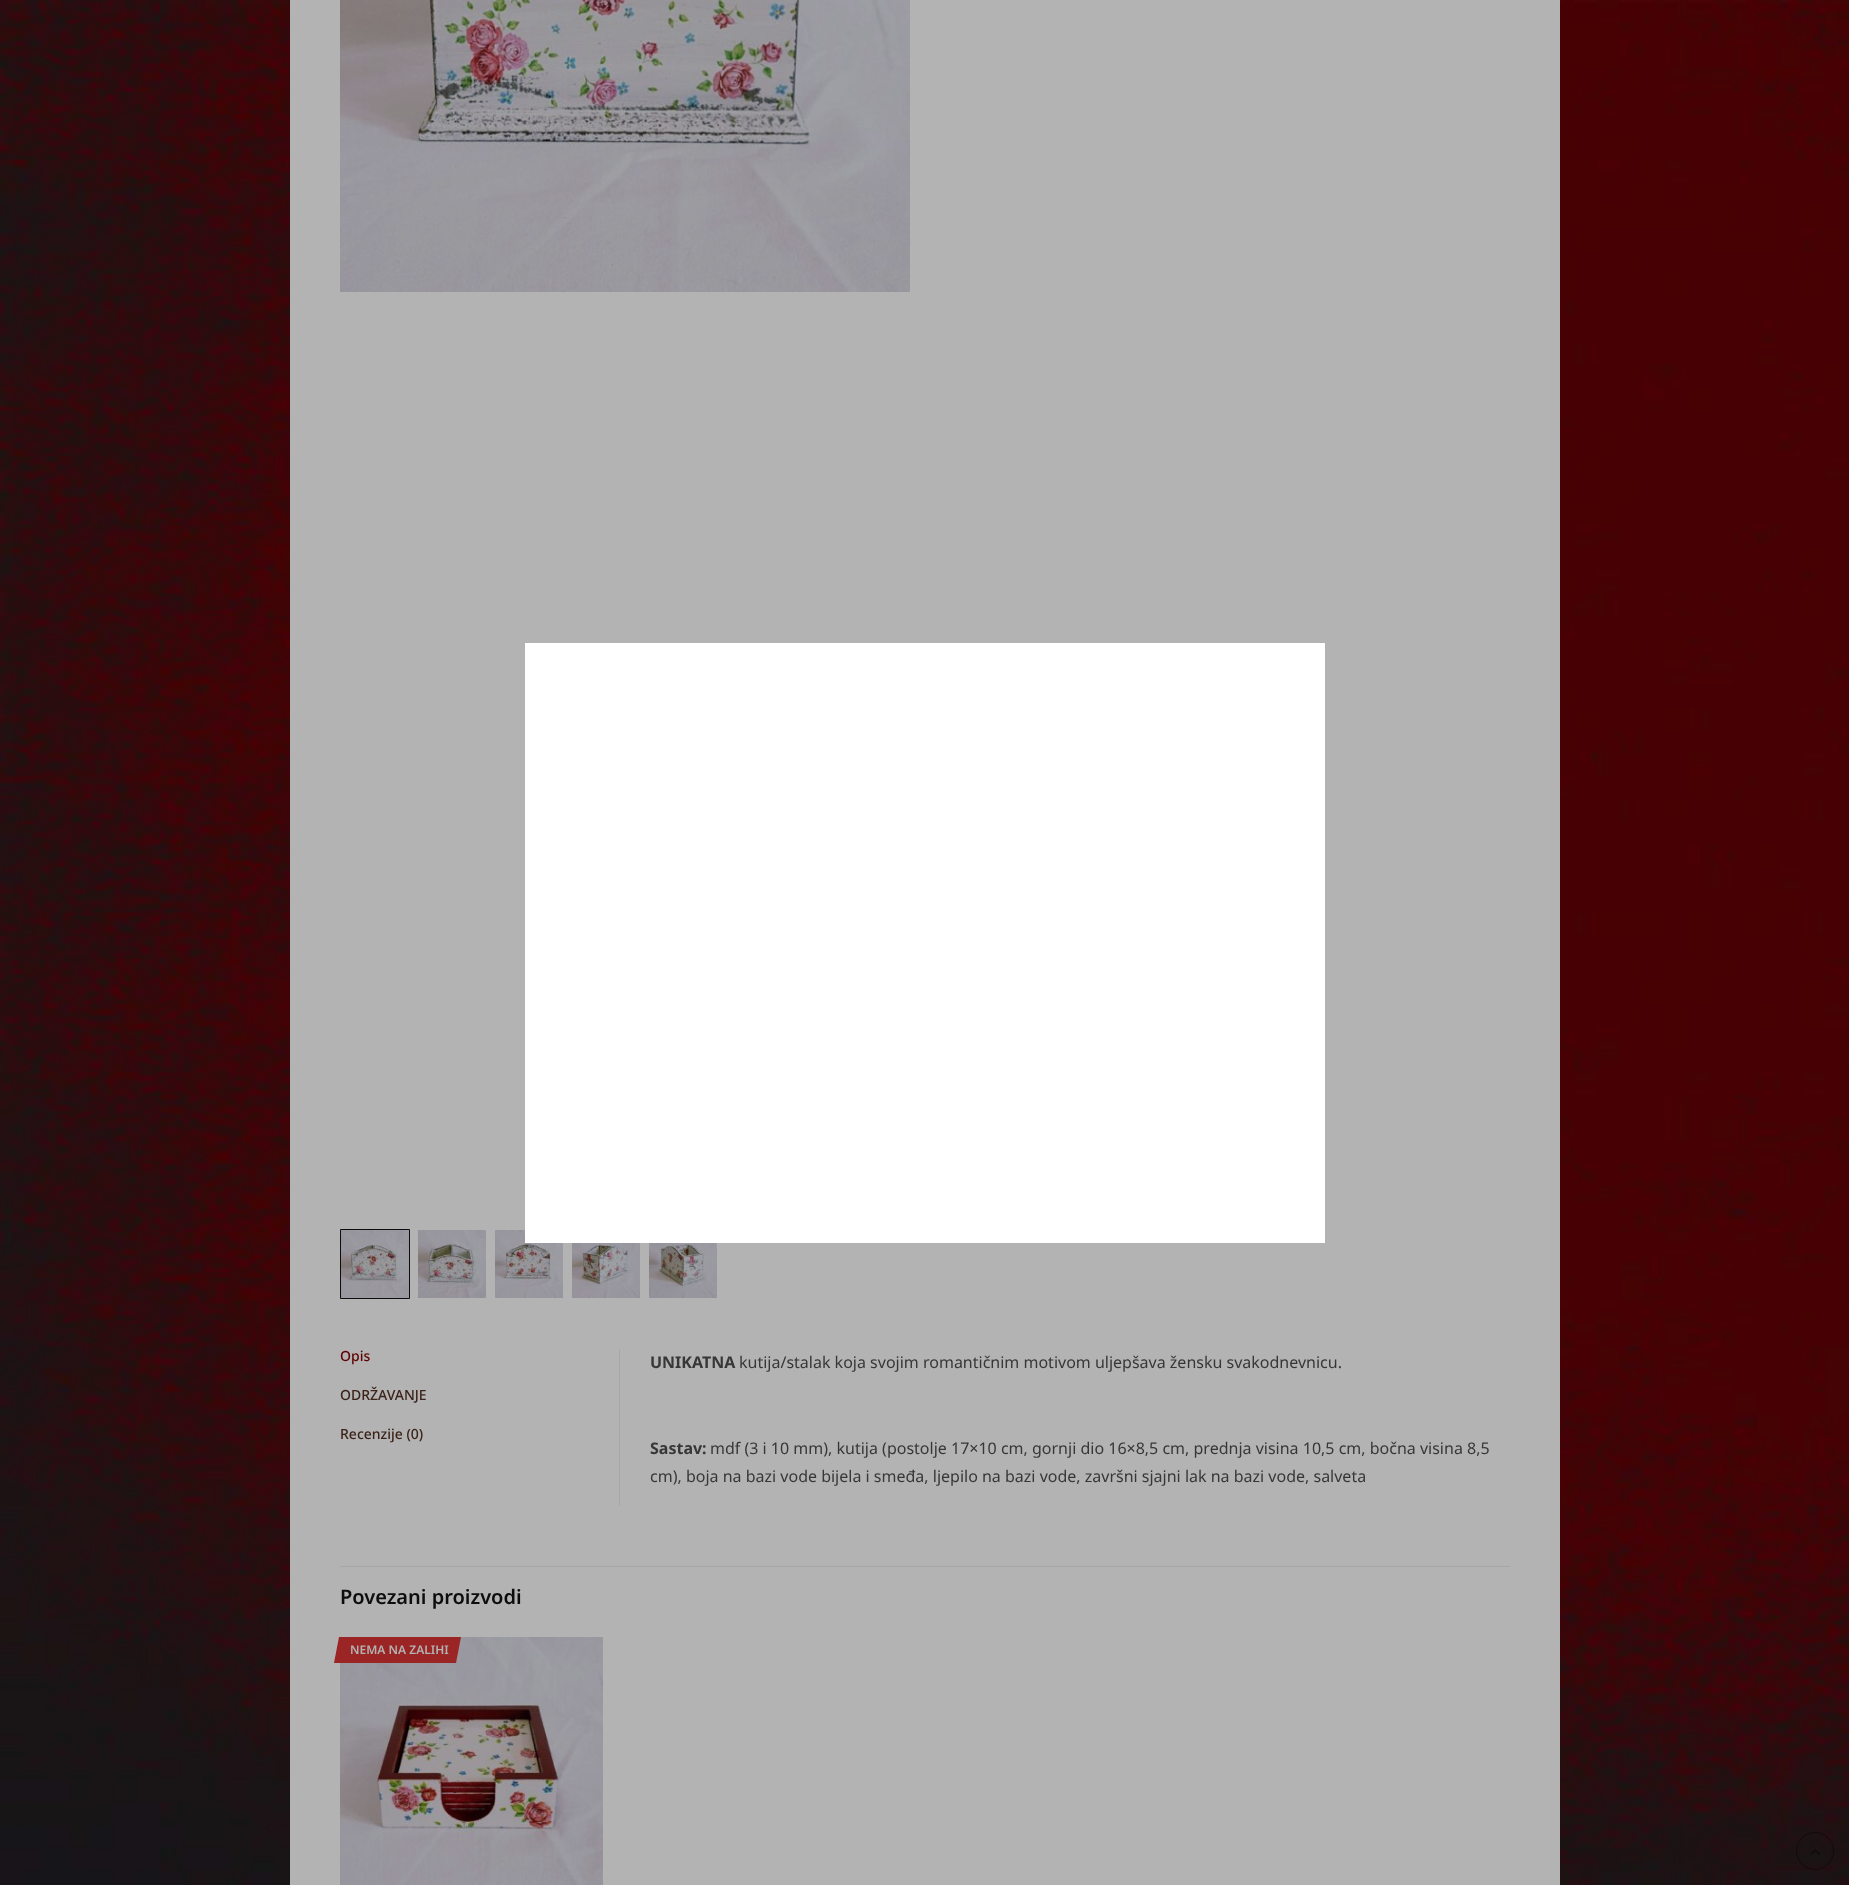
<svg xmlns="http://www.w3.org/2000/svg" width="1849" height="1885">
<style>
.a{font:500 14px Noto Sans;fill:#600000}
.b{font:500 14px Noto Sans;fill:#3c2319}
.c{font:bold 16px Noto Sans;fill:#373737}
.d{font:16px Noto Sans;fill:#373737}
.e{font:600 20px Noto Sans;fill:#0d0d0d}
.f{font:600 12px Noto Sans;fill:#b3b3b3}
</style>
<rect width="100%" height="100%" fill="#fff"/>
<image href="1.png" x="0" y="0" width="1849" height="1885"/>
<path fill="#b3b3b3" d="M290 0h1270v1885H290z"/>
<image href="5.png" x="495" y="1230" width="68" height="68"/>
<path fill="#fff" d="M525 643h800v600H525z"/>
<image href="2.png" x="340" y="0" width="570" height="292"/>
<path fill="none" stroke="#0d0d0d" d="M340.5 1229.5h69v69H340.5z"/>
<image href="3.png" x="341" y="1230" width="68" height="68"/>
<image href="4.png" x="418" y="1230" width="68" height="68"/>
<image href="6.png" x="572" y="1243" width="68" height="55"/>
<image href="7.png" x="649" y="1243" width="68" height="55"/>
<path fill="#a7a7a7" d="M619 1349h1v157H619z"/>
<path fill="#a7a7a7" d="M340 1566h1170v1H340z"/>
<image href="8.png" x="340" y="1637" width="263" height="248"/>
<path fill="#9b2424" d="M339 1637h122l-5 26h-122z"/>
<circle fill="none" stroke="#00000066" cx="1815" cy="1851" r="18.5"/>
<image href="9.png" x="1810" y="1849" width="10" height="6"/>
<text class="a" x="340" y="1361">Opis</text>
<text class="b" x="340" y="1400">ODRŽAVANJE</text>
<text class="b" x="340" y="1439">Recenzije (0)</text>
<text class="c" x="650" y="1368">UNIKATNA</text>
<text class="d" x="739" y="1368">kutija/stalak koja svojim romantičnim motivom uljepšava žensku svakodnevnicu.</text>
<text class="c" x="650" y="1454">Sastav:</text>
<text class="d" x="710" y="1454">mdf (3 i 10 mm), kutija (postolje 17×10 cm, gornji dio 16×8,5 cm, prednja visina 10,5 cm, bočna visina 8,5</text>
<text class="d" x="650" y="1482">cm), boja na bazi vode bijela i smeđa, ljepilo na bazi vode, završni sjajni lak na bazi vode, salveta</text>
<text class="e" x="340" y="1604">Povezani proizvodi</text>
<text class="f" x="350" y="1654">NEMA NA ZALIHI</text>
</svg>
